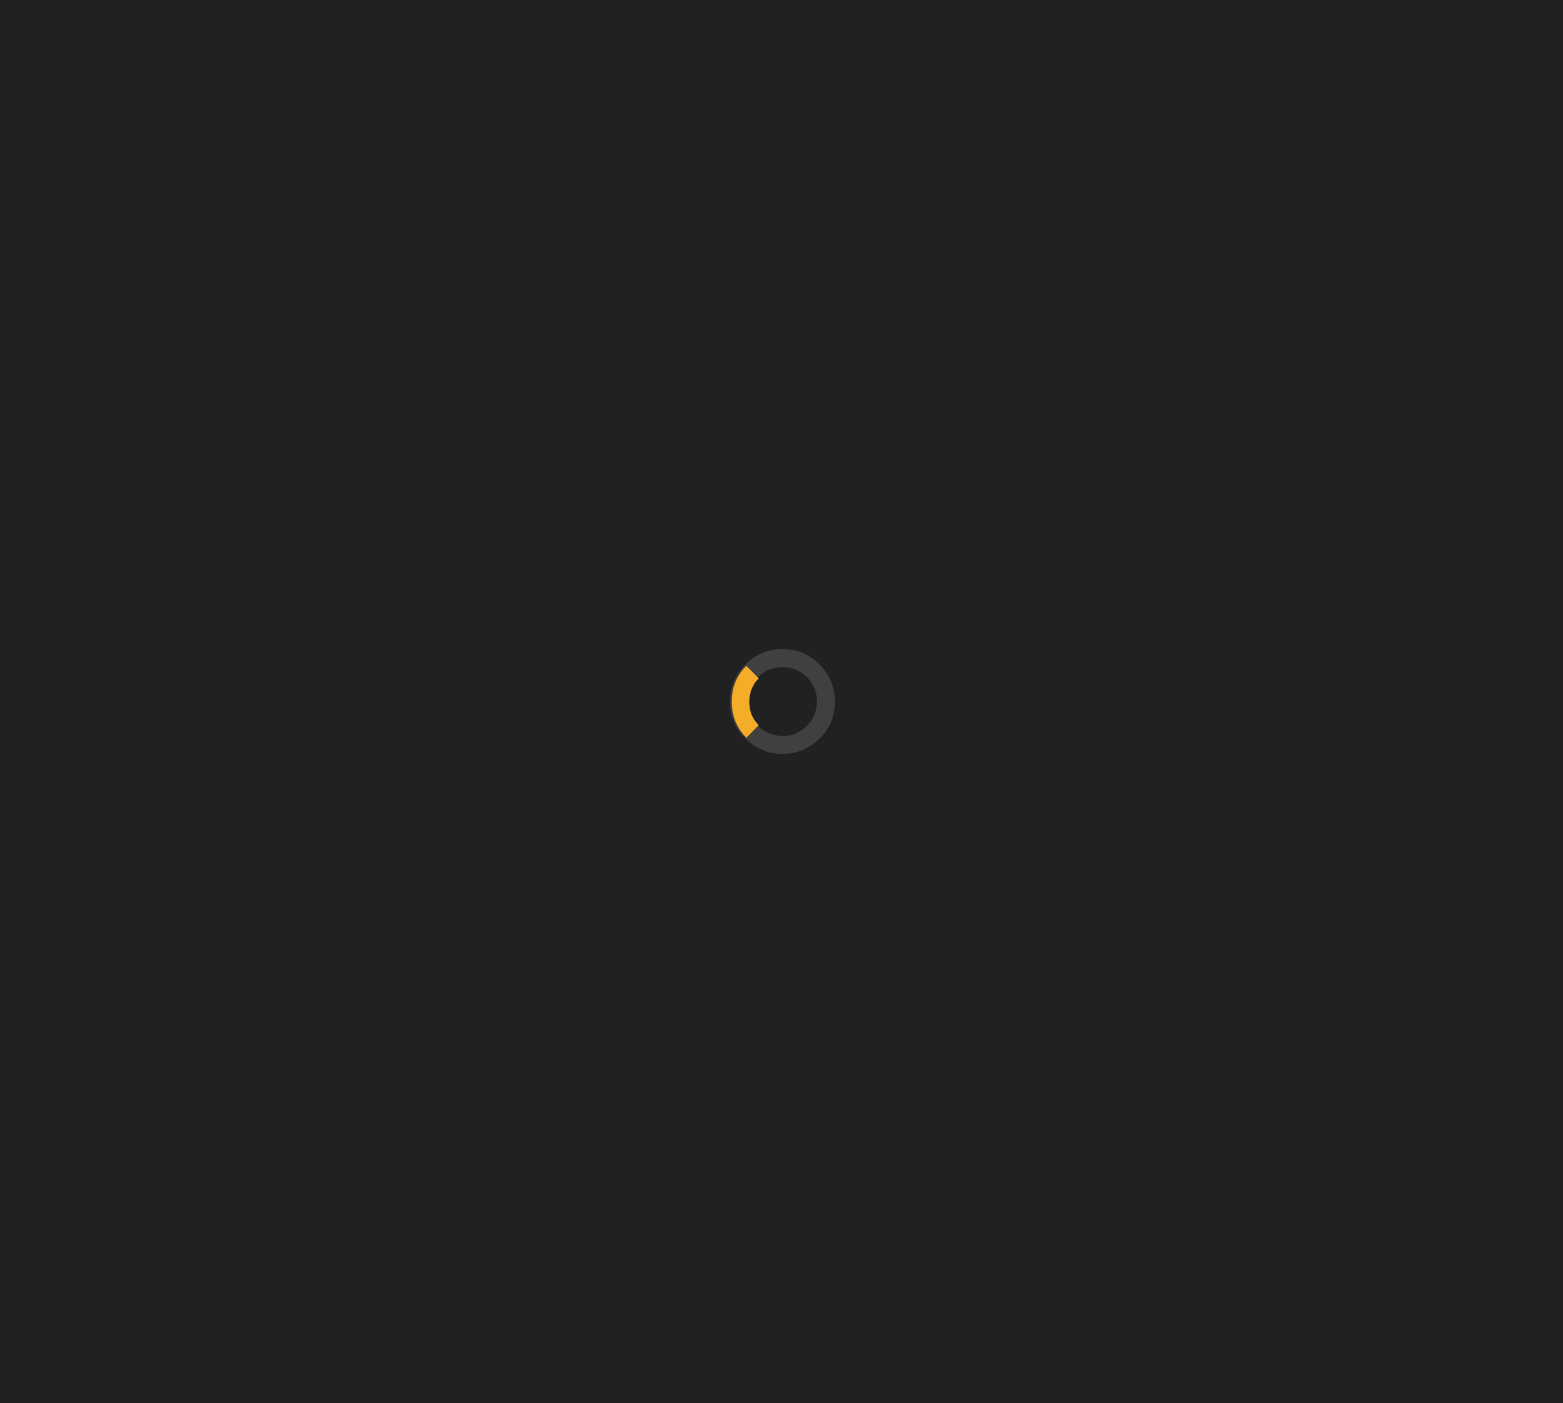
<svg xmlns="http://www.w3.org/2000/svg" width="1563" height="1403">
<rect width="100%" height="100%" fill="#212121"/>
<circle fill="none" stroke="#404040" stroke-width="18" cx="782.5" cy="701.5" r="43.5"/>
<path fill="none" stroke="#f3ad29" stroke-width="17.5" d="M752.5 731.5c-16-16-16-43.5 0-59.5"/>
</svg>
